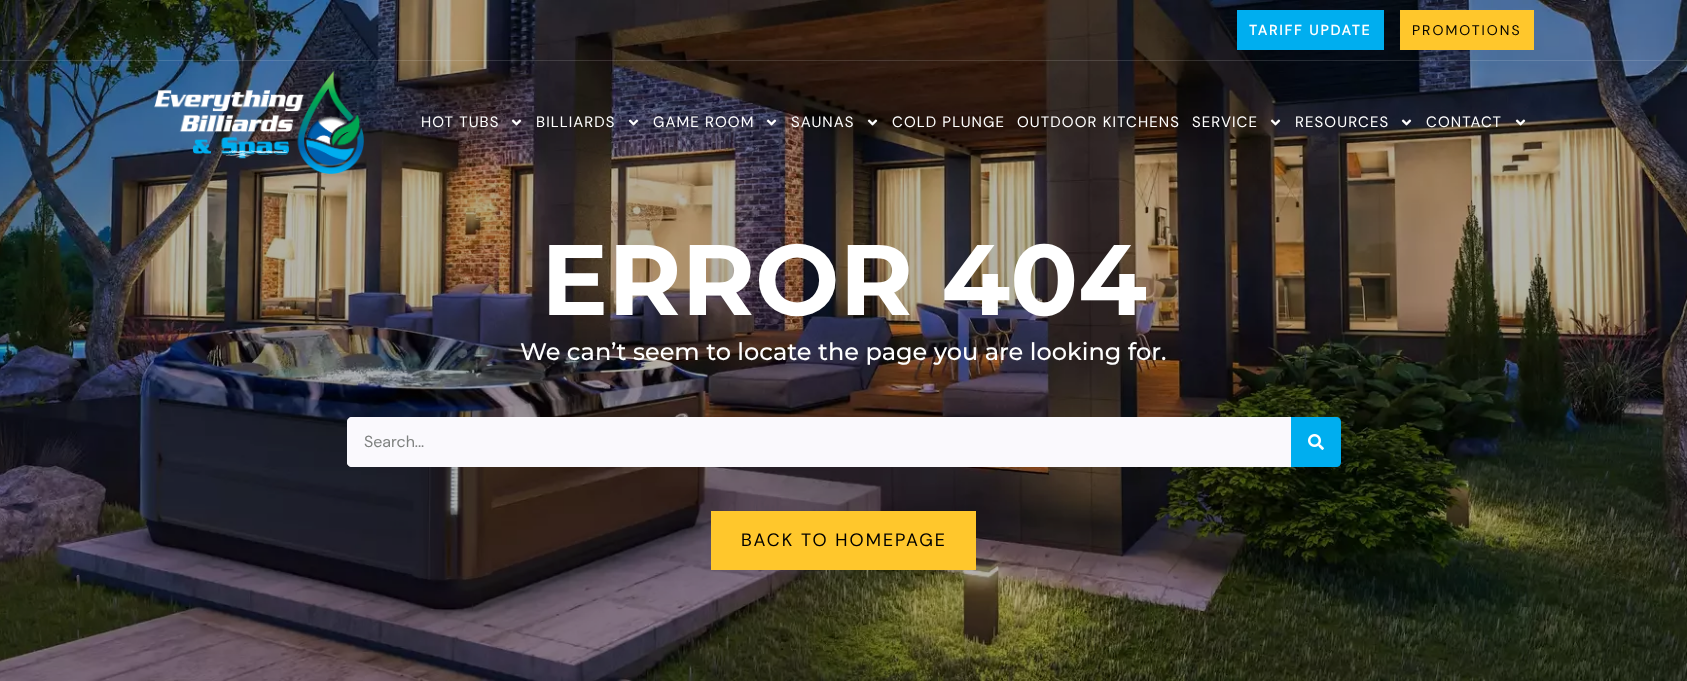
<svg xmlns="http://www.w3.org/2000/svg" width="1687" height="681">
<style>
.a{font:bold 14px DM Sans;letter-spacing:2px;fill:#fff}
.b{font:14px DM Sans;letter-spacing:2px;fill:#000}
.c{font:15px DM Sans;letter-spacing:1.1px;fill:#fff}
.d{font:bold 100px Montserrat;fill:#fff}
.e{font:500 24px Montserrat;fill:#fff}
.f{font:16px DM Sans;fill:#7f8280}
.g{font:18px DM Sans;letter-spacing:2px;fill:#000}
</style>
<rect width="100%" height="100%" fill="#fff"/>
<image href="9.png" x="0" y="0" width="1687" height="681"/>
<path fill="#f8f8f824" d="M0 60h1687v1H0z"/>
<path fill="#00aeef" d="M1237 10h147v40H1237z"/>
<path fill="#ffc72c" d="M1400 10h134v40H1400z"/>
<image href="1.png" x="154" y="71" width="210" height="103"/>
<image href="2.png" x="511" y="119" width="11" height="7"/>
<image href="3.png" x="628" y="119" width="11" height="7"/>
<image href="4.png" x="766" y="119" width="11" height="7"/>
<image href="5.png" x="867" y="119" width="11" height="7"/>
<image href="6.png" x="1270" y="119" width="11" height="7"/>
<image href="7.png" x="1401" y="119" width="11" height="7"/>
<image href="8.png" x="1515" y="119" width="11" height="7"/>
<path fill="#faf9fd" d="M352 417h939v50h-939c-3 0-5-2-5-5v-40c0-3 2-5 5-5z"/>
<path fill="#faf9fd" fill-rule="evenodd" d="M347 422v40c0 1 0 2 1 3v-46zm5-5l-3 1h941v48h-941l3 1h939v-50z"/>
<path fill="#00aeef" d="M1291 417h45c3 0 5 2 5 5v40c0 3-2 5-5 5h-45z"/>
<image href="10.png" x="1308" y="434" width="16" height="16"/>
<path fill="#ffc72c" d="M711 511h265v59H711z"/>
<text class="a" x="1249" y="35">TARIFF UPDATE</text>
<text class="b" x="1412" y="35">PROMOTIONS</text>
<text class="c" x="421" y="127">HOT TUBS</text>
<text class="c" x="536" y="127">BILLIARDS</text>
<text class="c" x="653" y="127">GAME ROOM</text>
<text class="c" x="791" y="127">SAUNAS</text>
<text class="c" x="892" y="127">COLD PLUNGE</text>
<text class="c" x="1017" y="127">OUTDOOR KITCHENS</text>
<text class="c" x="1192" y="127">SERVICE</text>
<text class="c" x="1295" y="127">RESOURCES</text>
<text class="c" x="1426" y="127">CONTACT</text>
<text class="d" x="541" y="315">ERROR 404</text>
<text class="e" x="520" y="360">We can’t seem to locate the page you are looking for.</text>
<text class="f" x="364" y="447">Search...</text>
<text class="g" x="741" y="546">BACK TO HOMEPAGE</text>
</svg>
